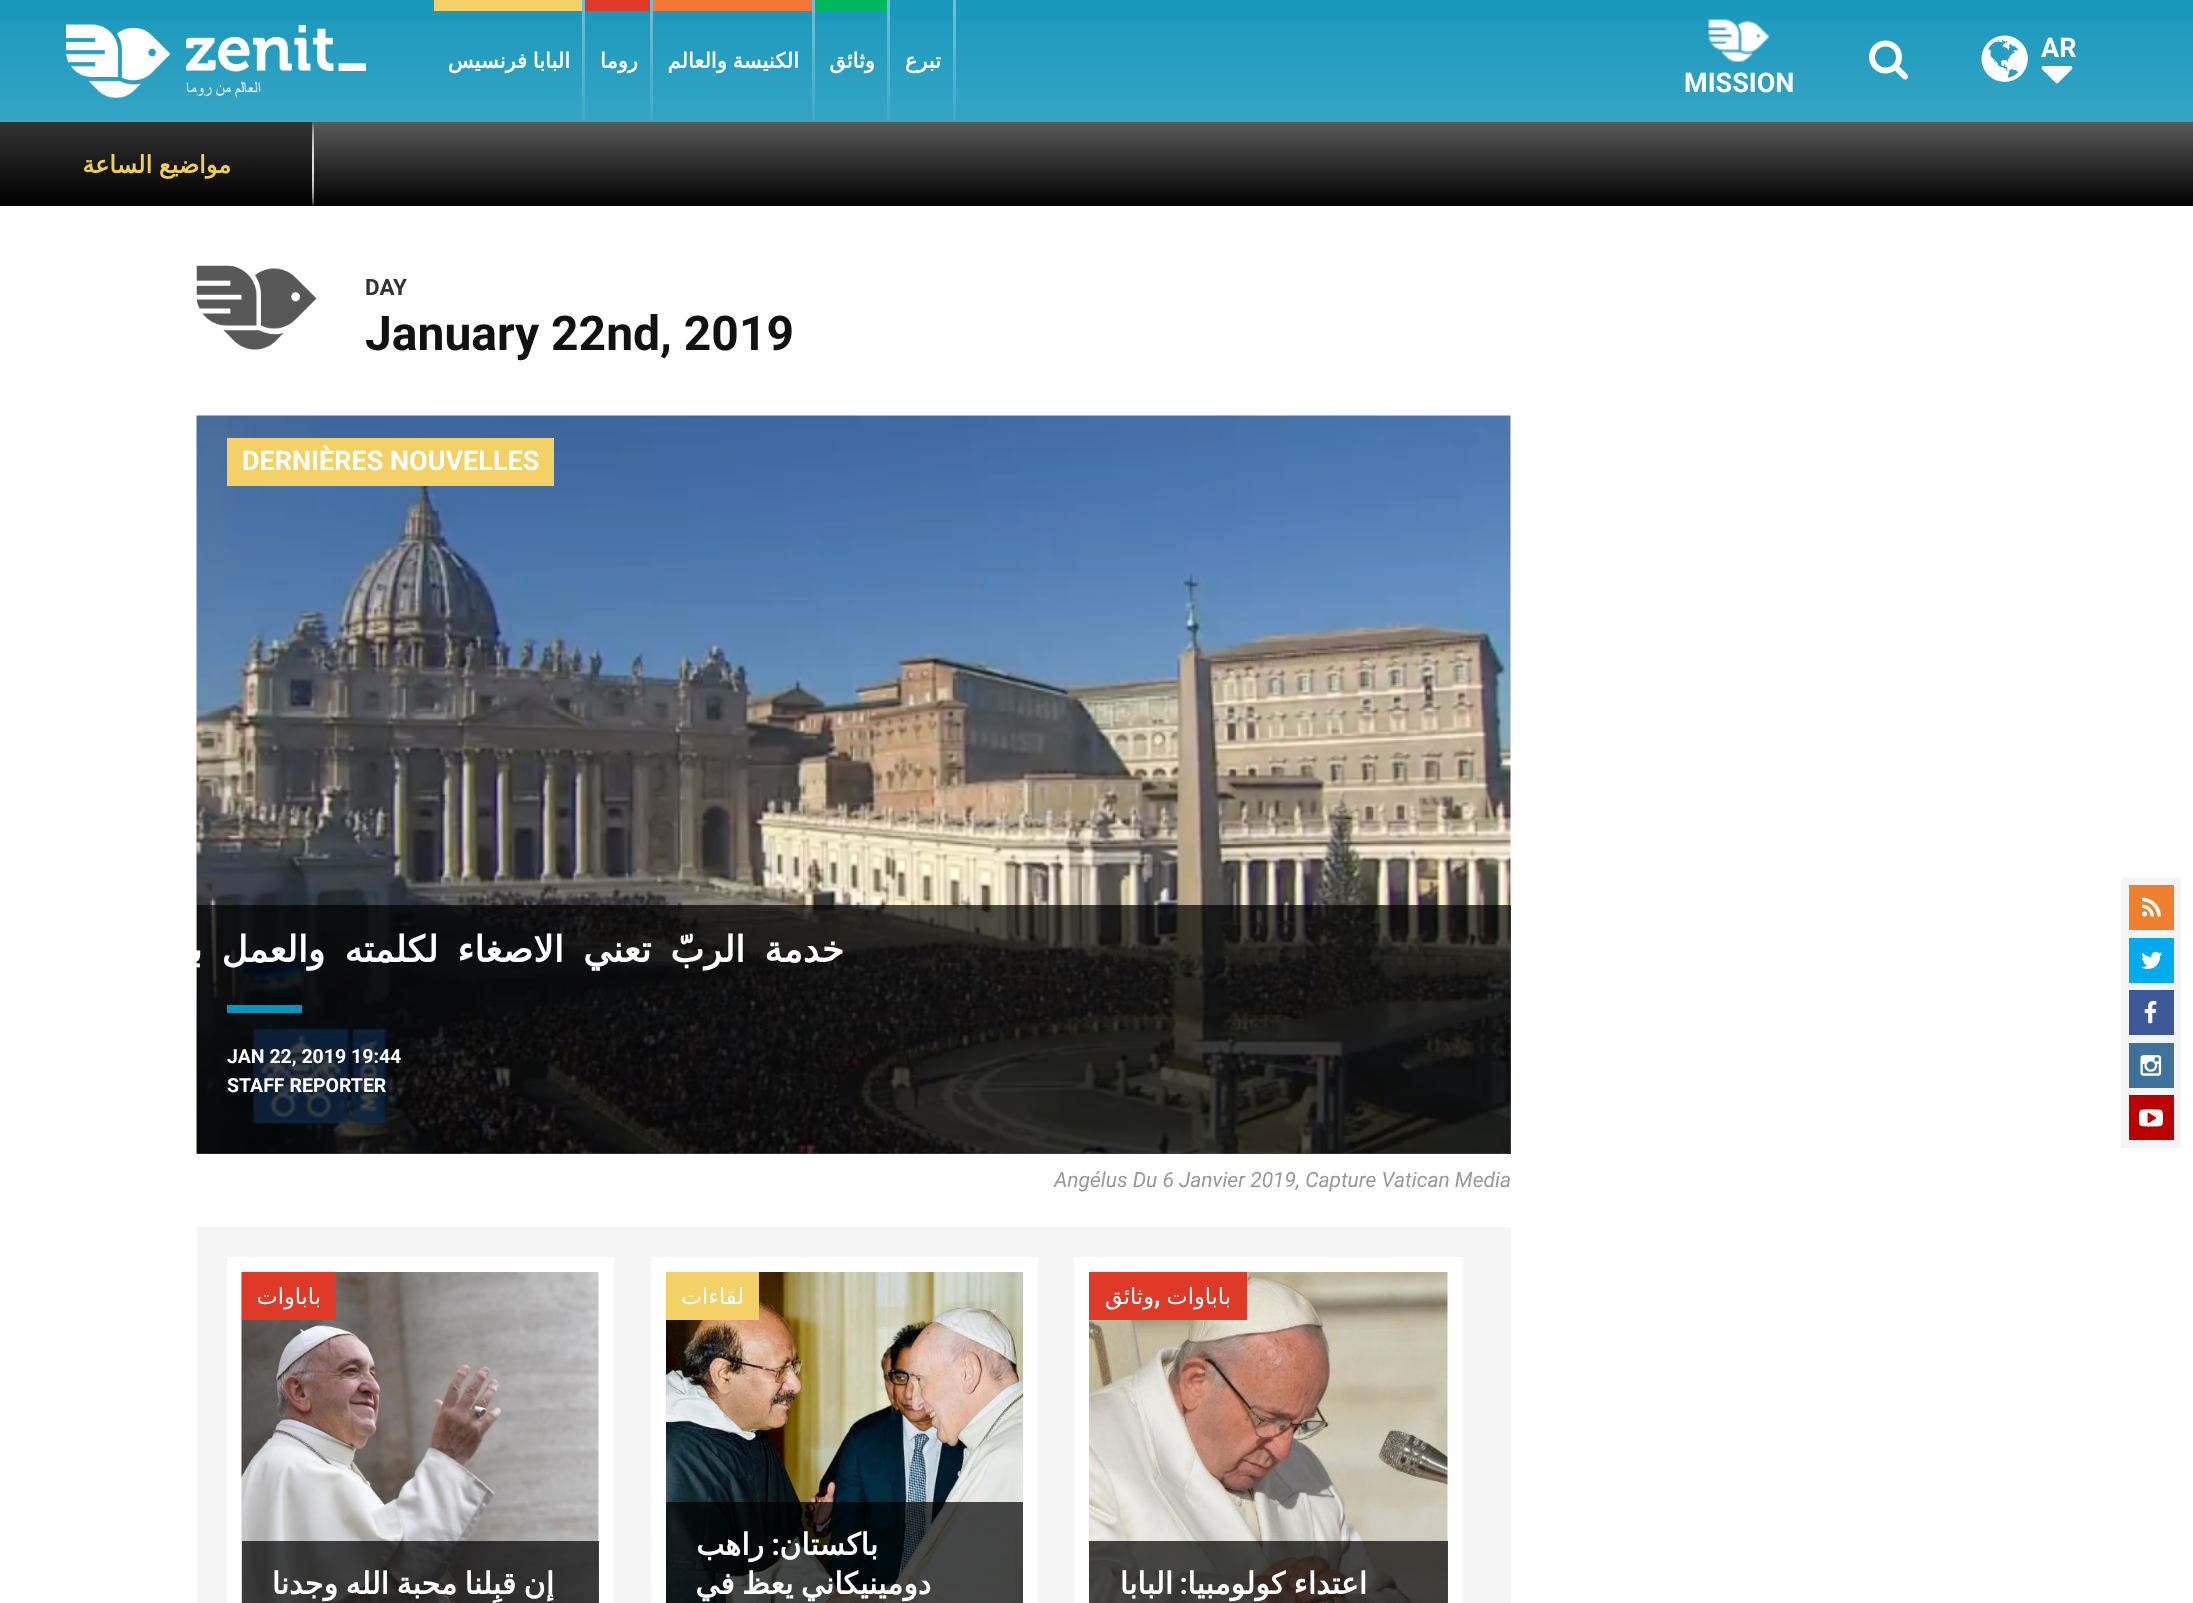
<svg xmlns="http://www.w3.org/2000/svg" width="2193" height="1603">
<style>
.a{font:bold 27px Roboto;fill:#fff}
.b{font:bold 21px DejaVu Sans;direction:rtl;fill:#fff}
.c{font:bold 24px DejaVu Sans;direction:rtl;fill:#efcf5a}
.d{font:bold 22.5px Roboto;fill:#333}
.e{font:bold 48px Roboto;fill:#111}
.f{font:bold 36px DejaVu Sans;letter-spacing:-1.5px;direction:rtl;fill:#fff}
.g{font:bold 19.5px Roboto;fill:#fff}
.h{font:italic 21px Roboto;fill:#999}
.i{font:22.5px DejaVu Sans;direction:rtl;fill:#fff}
.j{font:bold 30px DejaVu Sans;direction:rtl;fill:#fff}
.k{font:bold 30px Roboto;direction:rtl;fill:#fff}
</style>
<defs>
<linearGradient id="g1" gradientUnits="userSpaceOnUse" x1="1097" y1="0" x2="1097" y2="122"><stop offset="0" stop-color="#1898bc"/><stop offset="1" stop-color="#36a5c5"/></linearGradient>
<linearGradient id="g2" gradientUnits="userSpaceOnUse" x1="954" y1="0" x2="954" y2="120"><stop offset="0" stop-color="#72bed4"/><stop offset="1" stop-color="#41abca"/></linearGradient>
<linearGradient id="g3" gradientUnits="userSpaceOnUse" x1="888" y1="0" x2="888" y2="120"><stop offset="0" stop-color="#72bed4"/><stop offset="1" stop-color="#41abca"/></linearGradient>
<linearGradient id="g4" gradientUnits="userSpaceOnUse" x1="813" y1="0" x2="813" y2="120"><stop offset="0" stop-color="#72bed4"/><stop offset="1" stop-color="#41abca"/></linearGradient>
<linearGradient id="g5" gradientUnits="userSpaceOnUse" x1="651" y1="0" x2="651" y2="120"><stop offset="0" stop-color="#72bed4"/><stop offset="1" stop-color="#41abca"/></linearGradient>
<linearGradient id="g6" gradientUnits="userSpaceOnUse" x1="584" y1="0" x2="584" y2="120"><stop offset="0" stop-color="#72bed4"/><stop offset="1" stop-color="#41abca"/></linearGradient>
<linearGradient id="g7" gradientUnits="userSpaceOnUse" x1="1097" y1="121" x2="1097" y2="206"><stop offset="0" stop-color="#5c5c5c"/><stop offset="1" stop-color="#000"/></linearGradient>
<linearGradient id="g8" gradientUnits="userSpaceOnUse" x1="157" y1="121" x2="157" y2="206"><stop offset="0" stop-color="#333"/><stop offset="1" stop-color="#000"/></linearGradient>
</defs>
<rect width="100%" height="100%" fill="#fff"/>
<path fill="#f5f5f5" d="M2121 878h60v270H2121z"/>
<path fill="#ee802f" d="M2129 885h45v45H2129z"/>
<image href="1.png" x="2142" y="897" width="19" height="20"/>
<path fill="#00aced" d="M2129 938h45v45H2129z"/>
<image href="2.png" x="2141" y="951" width="21" height="18"/>
<path fill="#3b5998" d="M2129 990h45v45H2129z"/>
<image href="3.png" x="2144" y="1000" width="13" height="24"/>
<path fill="#3f729b" d="M2129 1043h45v45H2129z"/>
<image href="4.png" x="2140" y="1055" width="22" height="21"/>
<path fill="#b00" d="M2129 1095h45v45H2129z"/>
<image href="5.png" x="2139" y="1109" width="24" height="18"/>
<path fill="url(#g1)" d="M0 0h2193v122H0z"/>
<image href="6.png" x="1981" y="35" width="47" height="47"/>
<image href="7.png" x="2041" y="66" width="32" height="18"/>
<image href="8.png" x="1869" y="40" width="39" height="40"/>
<image href="9.png" x="1708" y="19" width="62" height="43"/>
<path fill="url(#g2)" d="M953 0h3v120H953z"/>
<path fill="#00b85d" d="M815 0h72v11H815z"/>
<path fill="url(#g3)" d="M887 0h3v120H887z"/>
<path fill="#f37634" d="M653 0h159v11H653z"/>
<path fill="url(#g4)" d="M812 0h3v120H812z"/>
<path fill="#df3a28" d="M585 0h65v11H585z"/>
<path fill="url(#g5)" d="M650 0h3v120H650z"/>
<path fill="#f3d166" d="M434 0h148v11H434z"/>
<path fill="url(#g6)" d="M582 0h3v120H582z"/>
<image href="10.png" x="66" y="24" width="300" height="74"/>
<path fill="url(#g7)" d="M314 122h1879v84H314z"/>
<path fill="url(#g8)" d="M0 122h314v84H0z"/>
<ellipse fill="#ddd" cx="313" cy="163.5" rx="1" ry="42"/>
<image href="11.png" x="196" y="265" width="121" height="85"/>
<image href="12.png" x="196" y="415" width="1315" height="739"/>
<path fill="#f3d166" d="M227 438h327v48H227z"/>
<path fill="#000000b3" d="M197 905h1314v249H197z"/>
<path fill="#0296be" d="M227 1005h75v8H227z"/>
<path fill="#f5f5f5" d="M197 1227h1314v376H197z"/>
<path fill="#fff" d="M1074 1257h389v346H1074z"/>
<image href="13.png" x="1089" y="1272" width="359" height="331"/>
<path fill="#df3a28" d="M1089 1272h158v48H1089z"/>
<path fill="#000000b3" d="M1089 1541h359v62H1089z"/>
<path fill="#fff" d="M651 1257h387v346H651z"/>
<image href="14.png" x="666" y="1272" width="357" height="331"/>
<path fill="#f3d166" d="M666 1272h93v48H666z"/>
<path fill="#000000b3" d="M666 1502h357v101H666z"/>
<path fill="#fff" d="M227 1257h387v346H227z"/>
<image href="15.png" x="241" y="1272" width="358" height="331"/>
<path fill="#df3a28" d="M242 1272h94v48H242z"/>
<path fill="#000000b3" d="M242 1541h357v62H242z"/>
<text class="a" x="2041" y="57">AR</text>
<text class="a" x="1684" y="92">MISSION</text>
<text class="b" x="941" y="68">تبرع</text>
<text class="b" x="875" y="68">وثائق</text>
<text class="b" x="799" y="68" word-spacing="-1">الكنيسة والعالم</text>
<text class="b" x="638" y="68">روما</text>
<text class="b" x="570" y="68" word-spacing="-1">البابا فرنسيس</text>
<text class="c" x="231" y="173" word-spacing="-1">مواضيع الساعة</text>
<text class="d" x="365" y="295">DAY</text>
<text class="e" x="365" y="350">January 22nd, 2019</text>
<text class="a" x="242" y="470">DERNIÈRES NOUVELLES</text>
<text class="f" x="844" y="962" word-spacing="7.75">خدمة الربّ تعني الاصغاء لكلمته والعمل بها</text>
<text class="g" x="227" y="1063">JAN 22, 2019 19:44</text>
<text class="g" x="227" y="1092">STAFF REPORTER</text>
<text class="h" x="1054" y="1187">Angélus Du 6 Janvier 2019, Capture Vatican Media</text>
<text class="i" x="1231" y="1304">باباوات</text>
<text class="a" x="1154" y="1304">,</text>
<text class="i" x="1154" y="1304">وثائق</text>
<text class="j" x="1367" y="1594" word-spacing="-1">اعتداء كولومبيا</text>
<text class="k" x="1188" y="1594">:</text>
<text class="j" x="1173" y="1594">البابا</text>
<text class="i" x="744" y="1304">لقاءات</text>
<text class="j" x="878" y="1555">باكستان</text>
<text class="k" x="780" y="1555">:</text>
<text class="j" x="764" y="1555">راهب</text>
<text class="j" x="931" y="1594" word-spacing="-2">دومينيكاني يعظ في</text>
<text class="i" x="321" y="1304">باباوات</text>
<text class="j" x="554" y="1594" word-spacing="-2">إن قبِلنا محبة الله وجدنا</text>
</svg>
